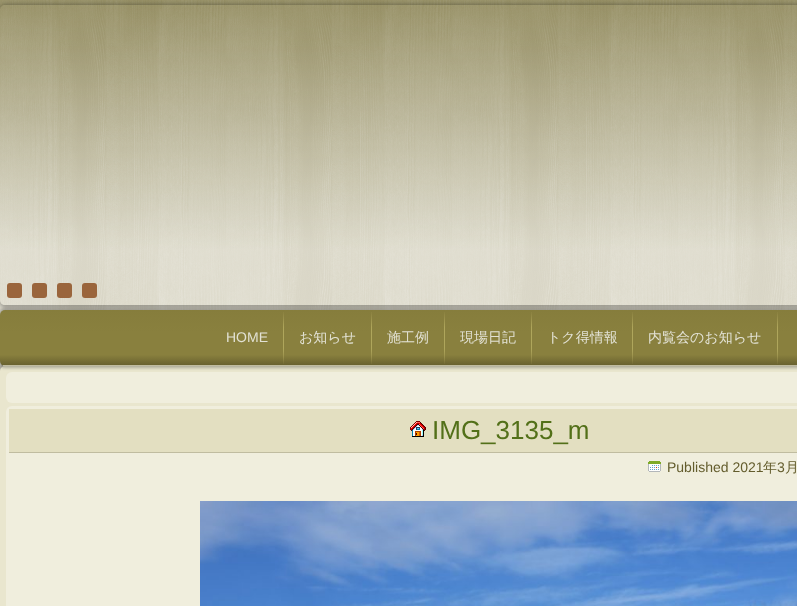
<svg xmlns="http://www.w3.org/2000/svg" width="797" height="606">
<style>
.a{font:14px Liberation Sans;fill:#e2e1d4}
.b{font:500 14px WenQuanYi Zen Hei;fill:#e2e1d4}
.c{font:26px Liberation Sans;fill:#537019}
.d{font:14px Liberation Sans;fill:#635c2c}
.e{font:500 14px WenQuanYi Zen Hei;fill:#635c2c}
</style>
<defs>
<clipPath id="clip1"><path d="M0 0h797v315h-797zm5 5h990c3 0 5 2 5 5v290c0 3-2 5-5 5h-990c-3 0-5-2-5-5v-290c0-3 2-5 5-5z" clip-rule="evenodd"/></clipPath>
<linearGradient id="g1" gradientUnits="userSpaceOnUse" x1="500" y1="310" x2="500" y2="366"><stop offset="0" stop-color="#867d3c"/><stop offset="0.4" stop-color="#89803e"/><stop offset="0.8" stop-color="#89803e"/><stop offset="1" stop-color="#665f2e"/></linearGradient>
</defs>
<rect width="100%" height="100%" fill="#fff"/>
<image href="1.png" x="0" y="0" width="797" height="371"/>
<g clip-path="url(#clip1)">
<rect fill="#0000004d" filter="blur(2px)" x="-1" y="4" width="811" height="304" rx="7"/>
</g>
<rect fill="#9a653c" x="7" y="283" width="15" height="15" rx="3"/>
<rect fill="#9a653c" x="32" y="283" width="15" height="15" rx="3"/>
<rect fill="#9a653c" x="57" y="283" width="15" height="15" rx="3"/>
<rect fill="#9a653c" x="82" y="283" width="15" height="15" rx="3"/>
<rect fill="#00000040" filter="blur(1.5px)" x="-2" y="364" width="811" height="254" rx="7"/>
<rect fill="#e9e6ce" y="366" width="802" height="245" rx="5"/>
<rect fill="#f0eedd" x="6" y="372" width="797" height="31" rx="6"/>
<rect fill="#00000040" filter="blur(1.5px)" x="-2" y="308" width="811" height="60" rx="7"/>
<rect fill="url(#g1)" y="310" width="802" height="56" rx="5"/>
<path fill="#c0bca0" d="M3 365h794v1H3z"/>
<image href="2.png" x="283" y="312" width="1" height="52"/>
<image href="2.png" x="371" y="312" width="1" height="52"/>
<image href="2.png" x="444" y="312" width="1" height="52"/>
<image href="2.png" x="531" y="312" width="1" height="52"/>
<image href="2.png" x="632" y="312" width="1" height="52"/>
<image href="2.png" x="777" y="312" width="1" height="52"/>
<rect fill="#f0eedd" x="6" y="406" width="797" height="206" rx="6"/>
<path fill="#e3dfc1" d="M9 409h788v43H9z"/>
<path fill="#c0bca0" d="M9 452h788v1H9z"/>
<image href="3.png" x="410" y="421" width="16" height="16"/>
<image href="4.png" x="648" y="461" width="13" height="11"/>
<image href="5.png" x="200" y="501" width="597" height="105"/>
<text class="a" x="226" y="342">HOME</text>
<text class="b" x="299" y="342">お知らせ</text>
<text class="b" x="387" y="342">施工例</text>
<text class="b" x="460" y="342">現場日記</text>
<text class="b" x="547" y="342">トク得情報</text>
<text class="b" x="648" y="342">内覧会のお知らせ</text>
<text class="c" x="432" y="439">IMG_3135_m</text>
<text class="d" x="667" y="472">Published 2021</text>
<text class="e" x="763" y="472">年</text>
<text class="d" x="777" y="472">3</text>
<text class="e" x="785" y="472">月</text>
</svg>
